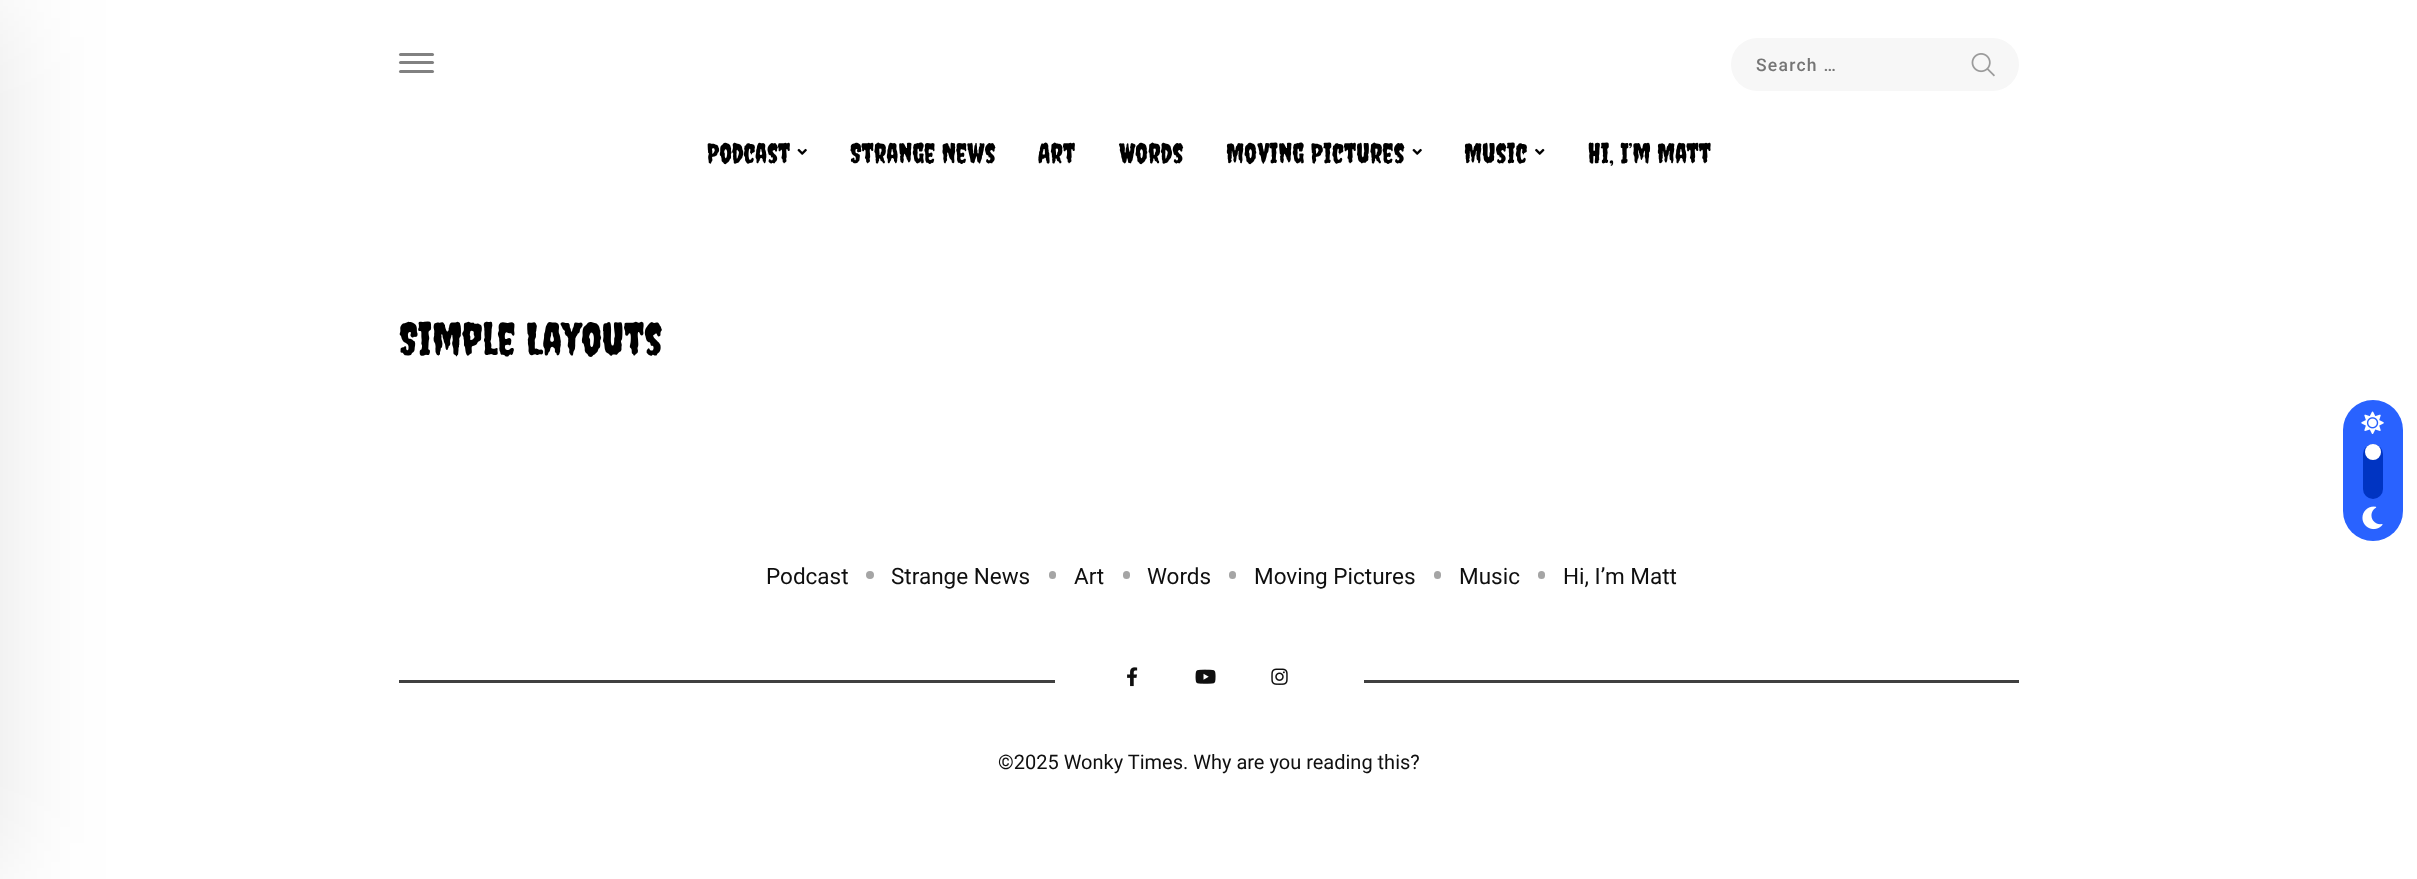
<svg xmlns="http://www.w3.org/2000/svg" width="2417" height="879">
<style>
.a{font:500 17.5px Roboto;letter-spacing:1.25px;fill:#757575}
.b{font:27.5px Creepster;fill:#000}
.c{font:45px Creepster;fill:#000}
.d{font:22.5px Roboto;fill:#0f0f0f}
.e{font:20px Roboto;fill:#0f0f0f}
</style>
<rect width="100%" height="100%" fill="#fff"/>
<path fill="#0000001a" filter="blur(56px)" d="M-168 0h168v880H-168z"/>
<rect fill="#818181" x="399" y="53" width="35" height="3" rx="1.5"/>
<rect fill="#818181" x="399" y="61" width="35" height="3" rx="1.5"/>
<rect fill="#818181" x="399" y="70" width="35" height="3" rx="1.5"/>
<rect fill="#f7f7f7" x="1731" y="38" width="288" height="53" rx="26.5"/>
<image href="1.png" x="1971" y="53" width="24" height="24"/>
<image href="2.png" x="797" y="148" width="10" height="7"/>
<image href="2.png" x="1412" y="148" width="10" height="7"/>
<image href="3.png" x="1535" y="148" width="10" height="7"/>
<circle fill="#a5a5a5" cx="870" cy="575" r="4"/>
<rect fill="#a5a5a5" x="1049" y="571" width="7" height="8" rx="3.5"/>
<rect fill="#a5a5a5" x="1123" y="571" width="7" height="8" rx="3.5"/>
<rect fill="#a5a5a5" x="1229" y="571" width="7" height="8" rx="3.5"/>
<rect fill="#a5a5a5" x="1434" y="571" width="7" height="8" rx="3.5"/>
<rect fill="#a5a5a5" x="1538" y="571" width="7" height="8" rx="3.5"/>
<path fill="#404040" d="M399 680h656v3H399z"/>
<image href="4.png" x="1127" y="667" width="11" height="20"/>
<image href="5.png" x="1195" y="669" width="21" height="15"/>
<image href="6.png" x="1271" y="668" width="17" height="17"/>
<path fill="#404040" d="M1364 680h655v3H1364z"/>
<rect fill="#2962ff" x="2343" y="400" width="60" height="141" rx="30"/>
<image href="7.png" x="2361" y="411" width="23" height="23"/>
<rect fill="#0034c2" x="2363" y="444" width="20" height="55" rx="10"/>
<circle fill="#fff" cx="2373" cy="452" r="8"/>
<image href="8.png" x="2362" y="506" width="21" height="24"/>
<text class="a" x="1756" y="71">Search …</text>
<text class="b" x="707" y="163">Podcast</text>
<text class="b" x="850" y="163">Strange News</text>
<text class="b" x="1038" y="163">Art</text>
<text class="b" x="1119" y="163">Words</text>
<text class="b" x="1226" y="163">Moving Pictures</text>
<text class="b" x="1464" y="163">Music</text>
<text class="b" x="1588" y="163">Hi, I’m Matt</text>
<text class="c" x="399" y="355">Simple Layouts</text>
<text class="d" x="766" y="584">Podcast</text>
<text class="d" x="891" y="584">Strange News</text>
<text class="d" x="1074" y="584">Art</text>
<text class="d" x="1147" y="584">Words</text>
<text class="d" x="1254" y="584">Moving Pictures</text>
<text class="d" x="1459" y="584">Music</text>
<text class="d" x="1563" y="584">Hi, I’m Matt</text>
<text class="e" x="998" y="769">©2025 Wonky Times. Why are you reading this?</text>
</svg>
